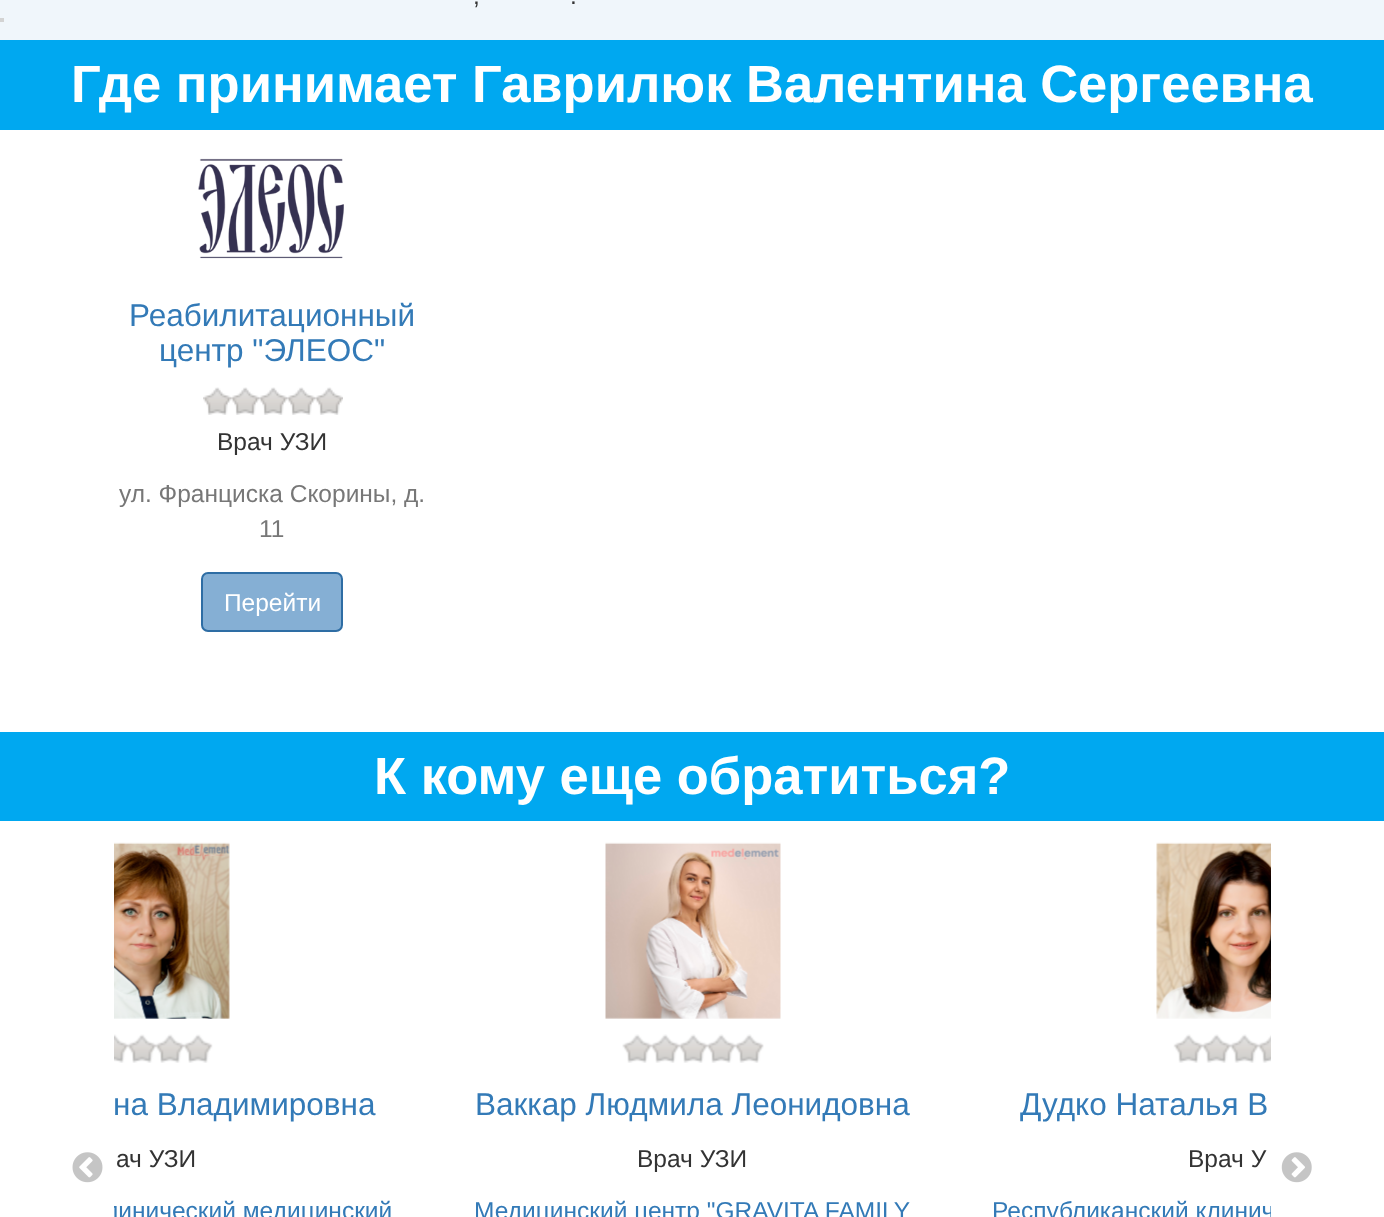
<svg xmlns="http://www.w3.org/2000/svg" width="1384" height="1217">
<style>
.a{font:24.5px Liberation Sans;fill:#333}
.b{font:bold 52.5px Liberation Sans;fill:#fff}
.c{font:31.5px Liberation Sans;fill:#337ab7}
.d{font:24.5px Liberation Sans;fill:#777}
.e{font:24.5px Liberation Sans;fill:#fff}
.f{font:24.5px Liberation Sans;fill:#337ab7}
</style>
<defs>
<clipPath id="clip1"><path d="M114 837h1157v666H114z"/></clipPath>
</defs>
<rect width="100%" height="100%" fill="#fff"/>
<path fill="#f0f6fb" d="M0 0h1384v40H0z"/>
<path fill="#d3d3d3" d="M0 18h4v4H0z"/>
<path fill="#00a8f0" d="M0 40h1384v90H0z"/>
<image href="1.png" x="198" y="158" width="146" height="101"/>
<image href="2.png" x="203" y="387" width="28" height="28"/>
<image href="3.png" x="231" y="387" width="28" height="28"/>
<image href="3.png" x="259" y="387" width="28" height="28"/>
<image href="3.png" x="287" y="387" width="28" height="28"/>
<image href="3.png" x="315" y="387" width="28" height="28"/>
<rect fill="#85afd4" stroke="#2e6da4" stroke-width="2" x="202" y="573" width="140" height="58" rx="6"/>
<path fill="#00a8f0" d="M0 732h1384v89H0z"/>
<image href="4.png" x="72" y="1152" width="31" height="31"/>
<image href="5.png" x="114" y="842" width="116" height="177"/>
<image href="6.png" x="114" y="1034" width="99" height="29"/>
<image href="7.png" x="605" y="842" width="176" height="177"/>
<image href="8.png" x="622" y="1034" width="142" height="29"/>
<image href="9.png" x="1156" y="842" width="115" height="177"/>
<image href="10.png" x="1173" y="1034" width="98" height="29"/>
<image href="11.png" x="1281" y="1152" width="31" height="31"/>
<text class="a" x="473" y="4">,</text>
<text class="a" x="570" y="4">.</text>
<text class="b" x="71" y="102">Где принимает Гаврилюк Валентина Сергеевна</text>
<text class="c" x="129" y="326">Реабилитационный</text>
<text class="c" x="159" y="361">центр "ЭЛЕОС"</text>
<text class="a" x="217" y="450">Врач УЗИ</text>
<text class="d" x="119" y="502">ул. Франциска Скорины, д.</text>
<text class="d" x="259" y="537">11</text>
<text class="e" x="224" y="611">Перейти</text>
<text class="b" x="374" y="794">К кому еще обратиться?</text>
<text class="c" x="113" y="1115">на Владимировна</text>
<text class="a" x="116" y="1167">ач УЗИ</text>
<g clip-path="url(#clip1)">
<text class="f" x="104" y="1219">линический медицинский</text>
</g>
<text class="c" x="475" y="1115">Ваккар Людмила Леонидовна</text>
<text class="a" x="637" y="1167">Врач УЗИ</text>
<text class="f" x="474" y="1219">Медицинский центр "GRAVITA FAMILY</text>
<text class="c" x="1020" y="1115">Дудко Наталья В</text>
<text class="a" x="1188" y="1167">Врач У</text>
<g clip-path="url(#clip1)">
<text class="f" x="992" y="1219">Республиканский клинич</text>
</g>
</svg>
